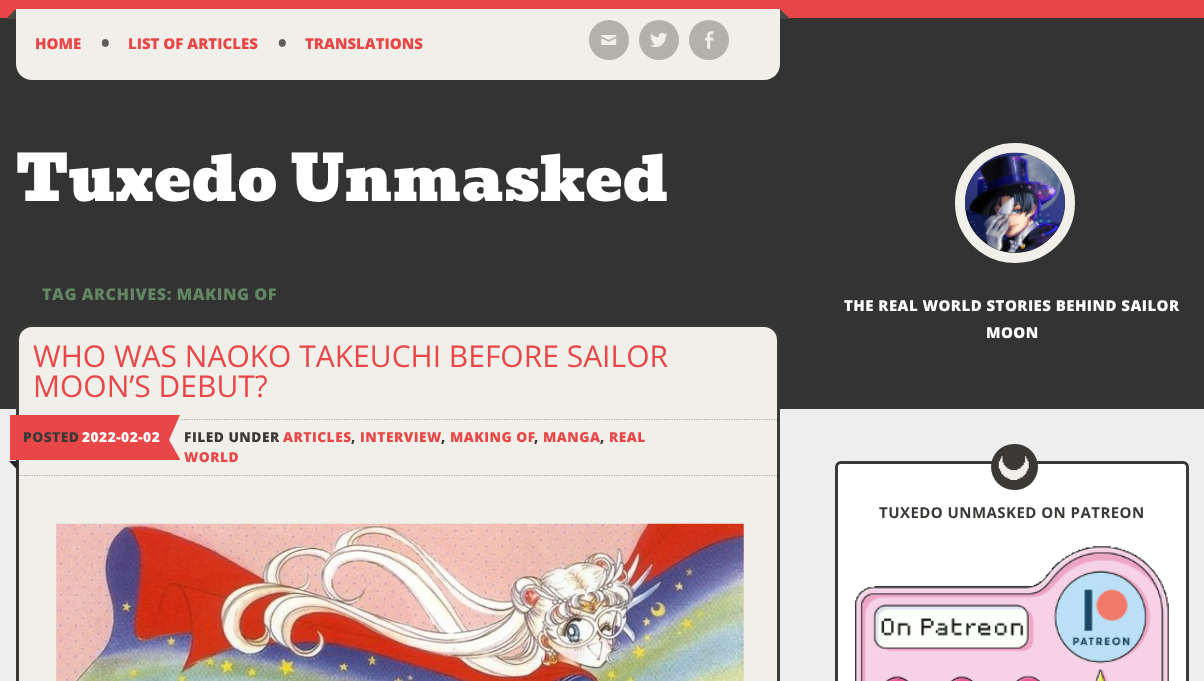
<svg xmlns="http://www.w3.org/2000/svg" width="1204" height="681">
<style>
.a{font:800 15px Open Sans;fill:#e84647}
.b{font:800 22px Open Sans;fill:#625e5e}
.c{font:62.5px Bevan;fill:#fff}
.d{font:800 15px Open Sans;letter-spacing:0.45px;fill:#fff}
.e{font:800 16.25px Open Sans;letter-spacing:0.5px;fill:#628563}
.f{font:30px Open Sans;fill:#e84647}
.g{font:800 13.75px Open Sans;letter-spacing:0.5px;fill:#3a3936}
.h{font:800 13.75px Open Sans;letter-spacing:0.5px;fill:#fff}
.i{font:800 13.75px Open Sans;letter-spacing:0.5px;fill:#e84647}
.j{font:bold 15px Open Sans;letter-spacing:0.45px;fill:#3a3936}
</style>
<rect width="100%" height="100%" fill="#eee"/>
<path fill="#333" d="M0 18h1204v391H0z"/>
<path fill="#e84647" d="M0 0h1204v18H0z"/>
<path fill="#f1efe9" d="M16 9h764v55c0 9-7 16-16 16h-732c-9 0-16-7-16-16z"/>
<path fill="#484744" d="M16 19h-10l10-10z"/>
<path fill="#484744" d="M780 19v-10l10 10z"/>
<circle fill="#b3b1aa" cx="609" cy="40" r="20"/>
<image href="1.png" x="601" y="35" width="16" height="10"/>
<circle fill="#b3b1aa" cx="659" cy="40" r="20"/>
<image href="2.png" x="650" y="32" width="18" height="16"/>
<circle fill="#b3b1aa" cx="709" cy="40" r="20"/>
<image href="3.png" x="705" y="31" width="9" height="18"/>
<circle fill="none" stroke="#f1efe9" stroke-width="10" cx="1015" cy="203" r="55"/>
<image href="4.png" x="965" y="152" width="100" height="101"/>
<rect fill="#f1efe9" stroke="#3a3936" stroke-width="3" x="17.5" y="325.5" width="761" height="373" rx="14.5"/>
<path fill="none" stroke="#0000004d" stroke-width="1.2" stroke-dasharray="1.25 1.25" d="M19 419.5h758.5"/>
<path fill="none" stroke="#0000004d" stroke-width="1.2" stroke-dasharray="1.25 1.25" d="M19 475.5h758.5"/>
<path fill="#e84647" d="M10 415h170v45H10z"/>
<path fill="#f1efe9" d="M180 415v44l-11-19z"/>
<path fill="#262524" d="M17.5 461v9l-8.5-9z"/>
<image href="5.png" x="56" y="523" width="688" height="158"/>
<rect fill="#fff" stroke="#3a3936" stroke-width="3" x="836.5" y="462.5" width="351" height="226" rx="4.5"/>
<rect fill="#3a3936" x="991" y="444" width="47" height="46" rx="23"/>
<image href="6.png" x="998" y="456" width="31" height="24"/>
<image href="7.png" x="855" y="546" width="314" height="135"/>
<text class="a" x="35" y="49">HOME</text>
<text class="b" x="101" y="51">•</text>
<text class="a" x="128" y="49">LIST OF ARTICLES</text>
<text class="b" x="278" y="51">•</text>
<text class="a" x="305" y="49">TRANSLATIONS</text>
<text class="c" x="16" y="201">Tuxedo Unmasked</text>
<text class="d" x="844" y="311">THE REAL WORLD STORIES BEHIND SAILOR</text>
<text class="d" x="986" y="338">MOON</text>
<text class="e" x="42" y="300">TAG ARCHIVES: MAKING OF</text>
<text class="f" x="33" y="367">WHO WAS NAOKO TAKEUCHI BEFORE SAILOR</text>
<text class="f" x="33" y="397">MOON’S DEBUT?</text>
<text class="g" x="23" y="442">POSTED</text>
<text class="h" x="82" y="442">2022-02-02</text>
<text class="g" x="184" y="442">FILED UNDER</text>
<text class="i" x="283" y="442">ARTICLES</text>
<text class="g" x="351" y="442">,</text>
<text class="i" x="360" y="442">INTERVIEW</text>
<text class="g" x="441" y="442">,</text>
<text class="i" x="450" y="442">MAKING OF</text>
<text class="g" x="534" y="442">,</text>
<text class="i" x="543" y="442">MANGA</text>
<text class="g" x="600" y="442">,</text>
<text class="i" x="609" y="442">REAL</text>
<text class="i" x="184" y="462">WORLD</text>
<text class="j" x="879" y="518">TUXEDO UNMASKED ON PATREON</text>
</svg>
